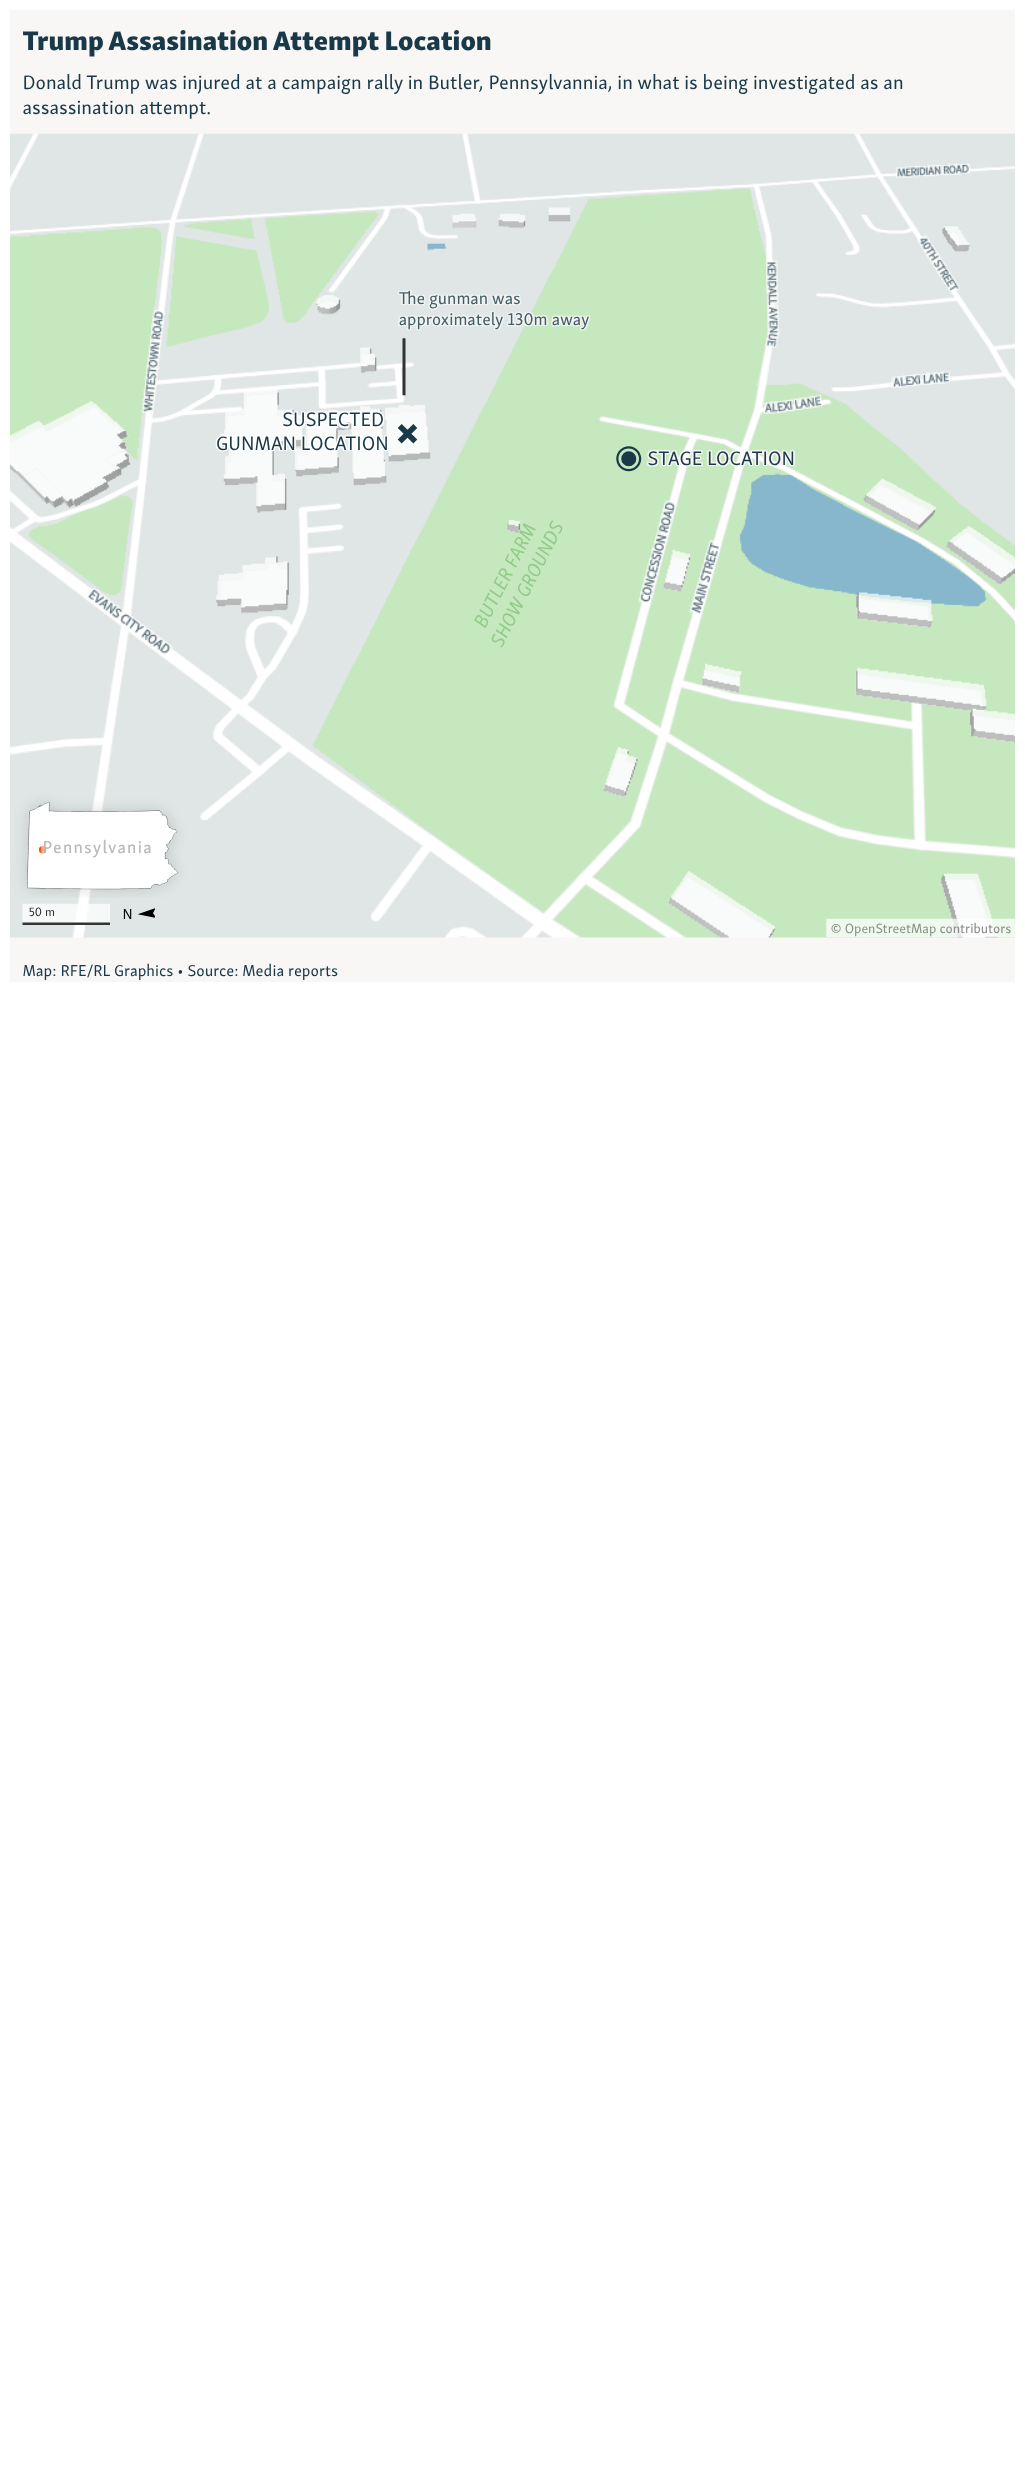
<svg xmlns="http://www.w3.org/2000/svg" width="1025" height="2476">
<rect width="100%" height="100%" fill="#fff"/>
<image href="1.png" x="10" y="10" width="1005" height="972"/>
</svg>
